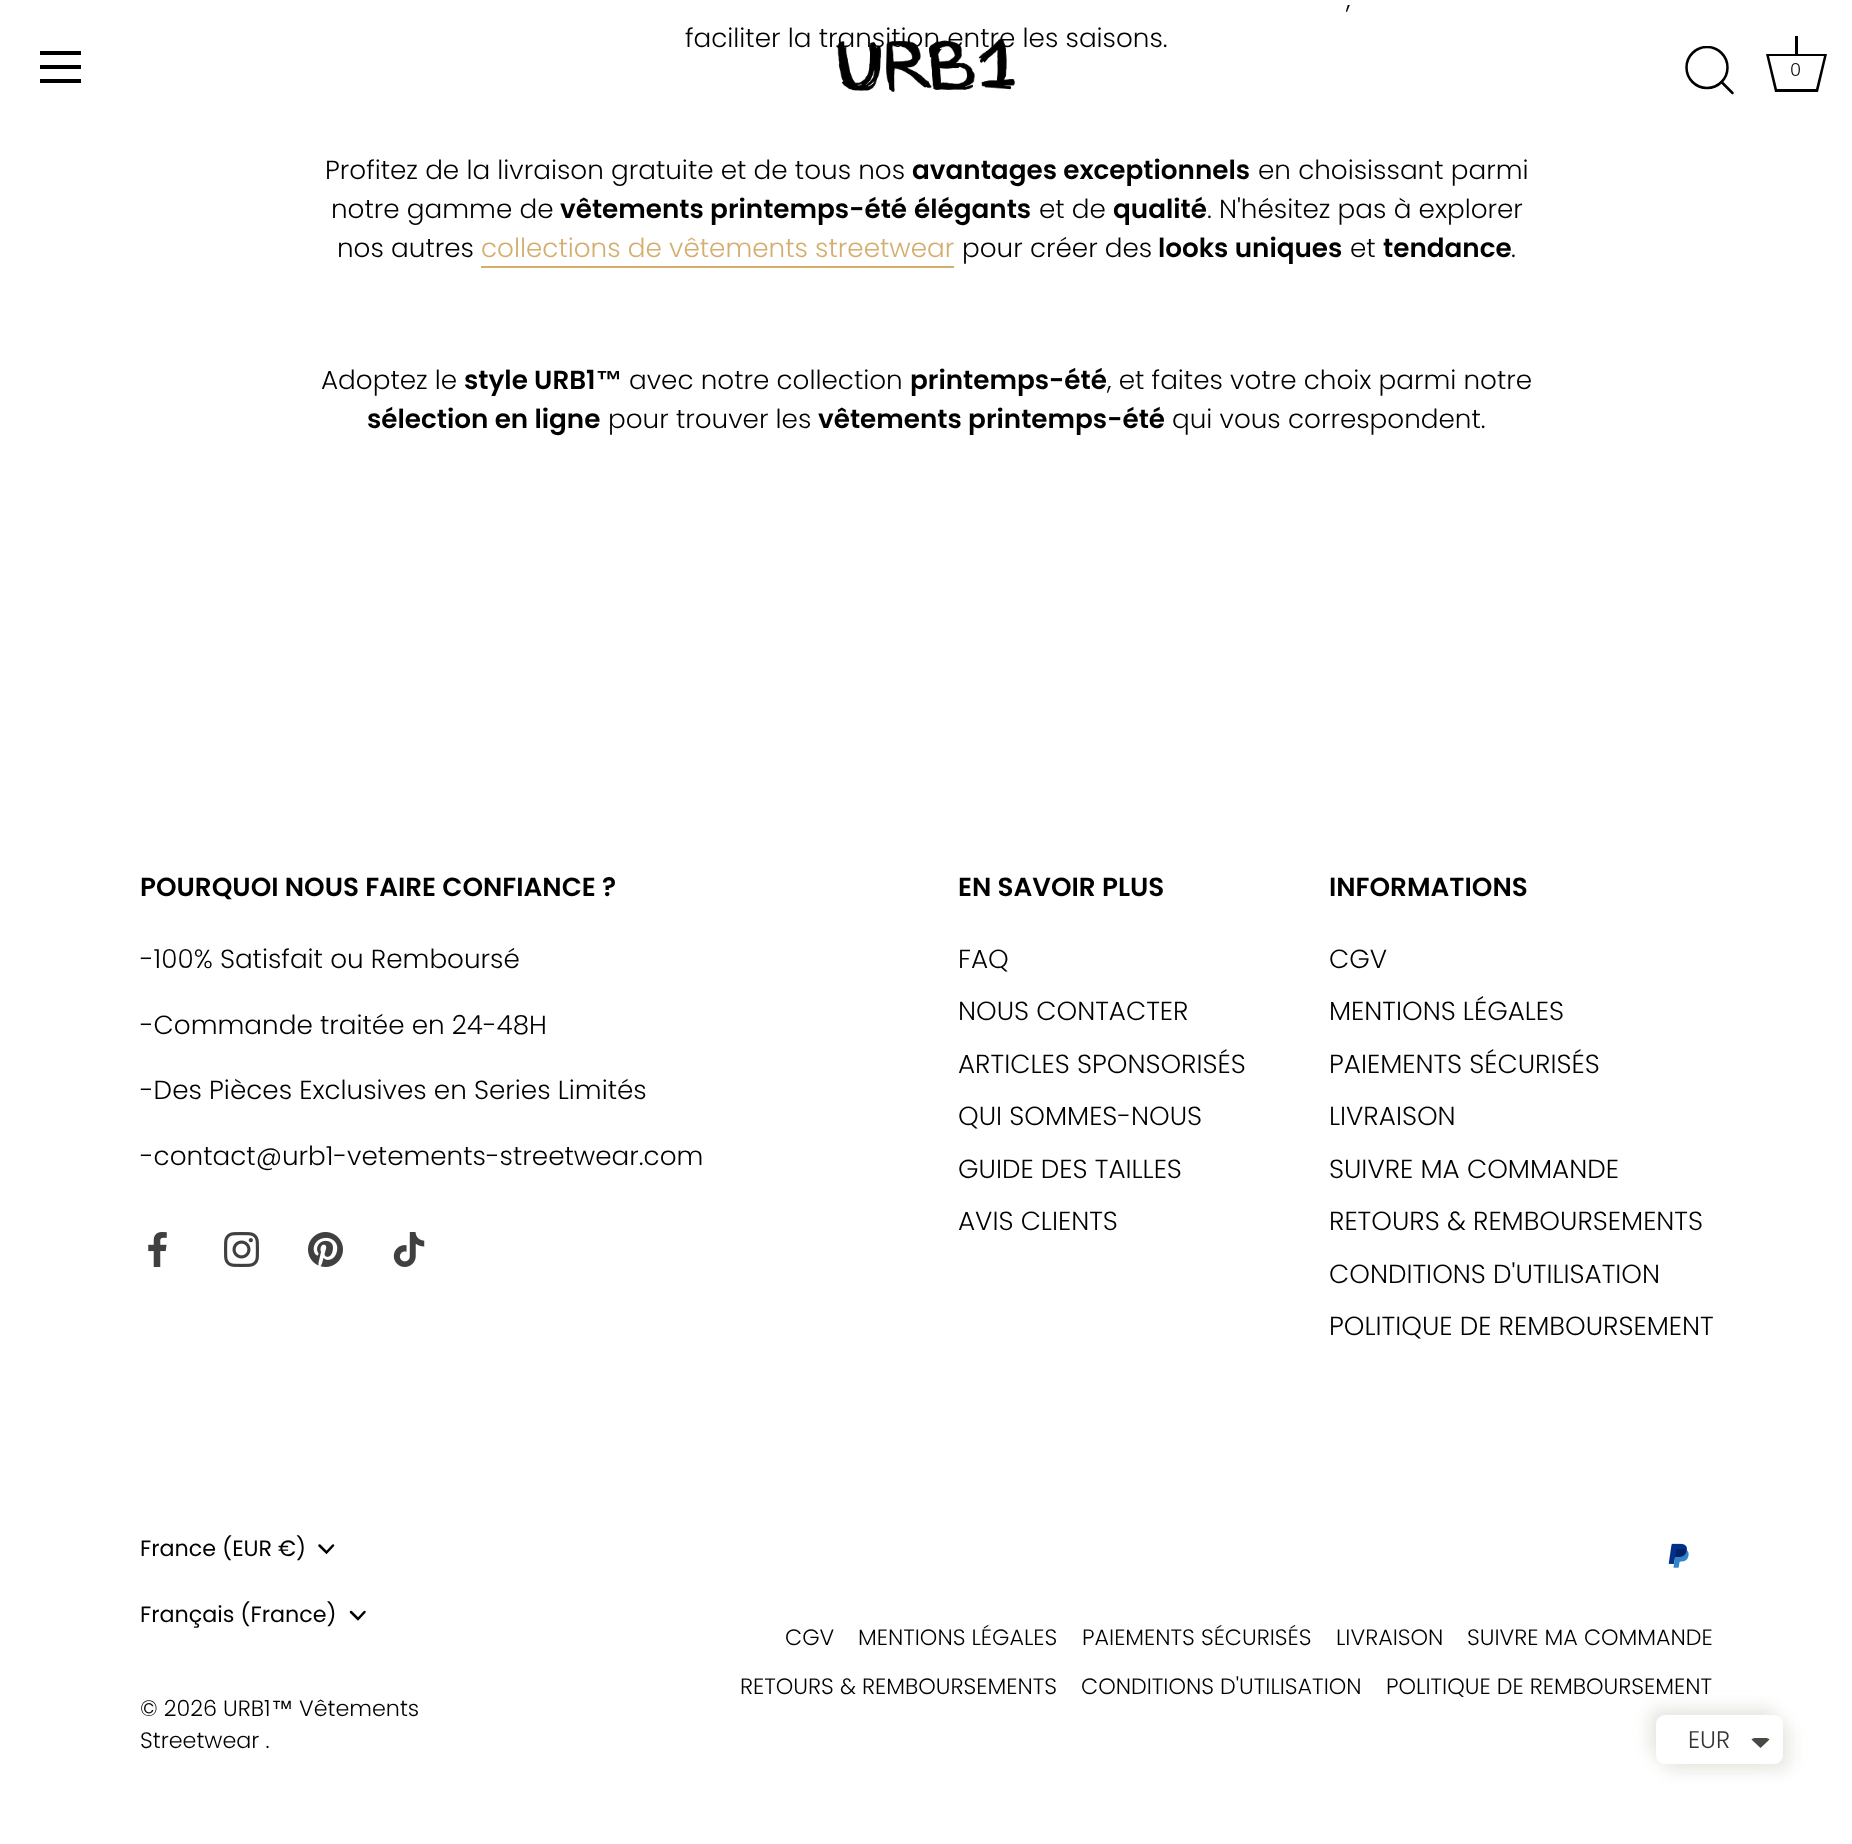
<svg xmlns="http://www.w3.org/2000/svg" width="1852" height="1844">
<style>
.a{font:300 26.25px Poppins;fill:#000}
.b{font:600 26.25px Poppins;fill:#000}
.c{font:300 26.25px Poppins;fill:#d4ae6f}
.d{font:bold 26.25px Liberation Sans;fill:#000}
.e{font:300 18px Poppins;fill:#000}
.f{font:22.25px Poppins;fill:#000}
.g{font:300 22.25px Poppins;fill:#000}
.h{font:22.25px Liberation Sans;fill:#000}
.i{font:300 24px Poppins;fill:#333}
</style>
<defs>
<clipPath id="clip1"><path d="M1685 46h51v50H1685z"/></clipPath>
</defs>
<rect width="100%" height="100%" fill="#fff"/>
<path fill="#d4ae6f" d="M481 266h473v2H481z"/>
<path fill="#000" d="M40 51h41v4H40z"/>
<path fill="#000" d="M40 65h41v4H40z"/>
<path fill="#000" d="M40 79h41v4H40z"/>
<g clip-path="url(#clip1)">
<circle fill="none" stroke="#000" stroke-width="2.5" cx="1707" cy="67.5" r="20.5"/>
</g>
<path fill="none" stroke="#000" stroke-width="2.5" stroke-linecap="round" stroke-linejoin="round" d="M1732.5 93l-11-11"/>
<path fill="#000" d="M1795 36h3v18H1795z"/>
<path fill="#000" d="M1824 56l-8 33h-39l-8-33h55m3-2h-61l9 38h43z"/>
<image href="2.png" x="148" y="1232" width="19" height="35"/>
<image href="3.png" x="224" y="1232" width="35" height="35"/>
<image href="4.png" x="308" y="1232" width="35" height="35"/>
<image href="5.png" x="393" y="1232" width="32" height="35"/>
<path fill="none" stroke="#000" stroke-width="2.5" stroke-linecap="round" d="M319.5 1545.5l7 7l6.5-7"/>
<path fill="none" stroke="#000" stroke-width="2.5" stroke-linecap="round" d="M351 1612l7 7l6.5-7"/>
<image href="6.png" x="1668" y="1543" width="21" height="25"/>
<rect fill="#e8e8e2" filter="blur(8px)" x="1649" y="1708" width="127" height="49" rx="9"/>
<rect fill="#e8e8e2" filter="blur(8px)" x="1663" y="1722" width="127" height="49" rx="9"/>
<rect fill="#fff" x="1656" y="1715" width="127" height="49" rx="9"/>
<path fill="#474942" d="M1755 1738h11c1 0 2.5 .5 3.5 1.5l-9 8.5l-9-8.5c1-1 2.5-1.5 3.5-1.5z"/>
<text class="a" x="1346" y="8">,</text>
<text class="a" x="685" y="47">faciliter la transition entre les saisons.</text>
<text class="a" x="325" y="179">Profitez de la livraison gratuite et de tous nos</text>
<text class="b" x="912" y="179">avantages exceptionnels</text>
<text class="a" x="1258" y="179">en choisissant parmi</text>
<text class="a" x="331" y="218">notre gamme de</text>
<text class="b" x="560" y="218">vêtements printemps-été</text>
<text class="b" x="914" y="218">élégants</text>
<text class="a" x="1039" y="218">et de</text>
<text class="b" x="1113" y="218">qualité</text>
<text class="a" x="1207" y="218">. N'hésitez pas à explorer</text>
<text class="a" x="337" y="257">nos autres</text>
<text class="c" x="481" y="257">collections de vêtements streetwear</text>
<text class="a" x="962" y="257">pour créer des</text>
<text class="b" x="1158" y="257">looks uniques</text>
<text class="a" x="1350" y="257">et</text>
<text class="b" x="1383" y="257">tendance</text>
<text class="a" x="1511" y="257">.</text>
<text class="a" x="321" y="389">Adoptez le</text>
<text class="b" x="464" y="389">style URB1</text>
<text class="d" x="596" y="389">™</text>
<text class="a" x="629" y="389">avec notre collection</text>
<text class="b" x="910" y="389">printemps-été</text>
<text class="a" x="1107" y="389">, et faites votre choix parmi notre</text>
<text class="b" x="367" y="428">sélection en ligne</text>
<text class="a" x="608" y="428">pour trouver les</text>
<text class="b" x="818" y="428">vêtements printemps-été</text>
<text class="a" x="1172" y="428">qui vous correspondent.</text>
<image href="1.png" x="836" y="38" width="180" height="54"/>
<text class="e" x="1790" y="76">0</text>
<text class="b" x="140" y="896">POURQUOI NOUS FAIRE CONFIANCE ?</text>
<text class="a" x="140" y="968">-100% Satisfait ou Remboursé</text>
<text class="a" x="140" y="1034">-Commande traitée en 24-48H</text>
<text class="a" x="140" y="1099">-Des Pièces Exclusives en Series Limités</text>
<text class="a" x="140" y="1165">-contact@urb1-vetements-streetwear.com</text>
<text class="b" x="958" y="896">EN SAVOIR PLUS</text>
<text class="a" x="958" y="968">FAQ</text>
<text class="a" x="958" y="1020">NOUS CONTACTER</text>
<text class="a" x="958" y="1073">ARTICLES SPONSORISÉS</text>
<text class="a" x="958" y="1125">QUI SOMMES-NOUS</text>
<text class="a" x="958" y="1178">GUIDE DES TAILLES</text>
<text class="a" x="958" y="1230">AVIS CLIENTS</text>
<text class="b" x="1329" y="896">INFORMATIONS</text>
<text class="a" x="1329" y="968">CGV</text>
<text class="a" x="1329" y="1020">MENTIONS LÉGALES</text>
<text class="a" x="1329" y="1073">PAIEMENTS SÉCURISÉS</text>
<text class="a" x="1329" y="1125">LIVRAISON</text>
<text class="a" x="1329" y="1178">SUIVRE MA COMMANDE</text>
<text class="a" x="1329" y="1230">RETOURS &amp; REMBOURSEMENTS</text>
<text class="a" x="1329" y="1283">CONDITIONS D'UTILISATION</text>
<text class="a" x="1329" y="1335">POLITIQUE DE REMBOURSEMENT</text>
<text class="f" x="140" y="1556">France (EUR €)</text>
<text class="f" x="140" y="1622">Français (France)</text>
<text class="g" x="140" y="1716">© 2026 URB1</text>
<text class="h" x="271" y="1716">™</text>
<text class="g" x="299" y="1716">Vêtements</text>
<text class="g" x="140" y="1748">Streetwear .</text>
<text class="g" x="785" y="1645">CGV</text>
<text class="g" x="858" y="1645">MENTIONS LÉGALES</text>
<text class="g" x="1082" y="1645">PAIEMENTS SÉCURISÉS</text>
<text class="g" x="1336" y="1645">LIVRAISON</text>
<text class="g" x="1467" y="1645">SUIVRE MA COMMANDE</text>
<text class="g" x="740" y="1694">RETOURS &amp; REMBOURSEMENTS</text>
<text class="g" x="1081" y="1694">CONDITIONS D'UTILISATION</text>
<text class="g" x="1386" y="1694">POLITIQUE DE REMBOURSEMENT</text>
<text class="i" x="1688" y="1748">EUR</text>
</svg>
